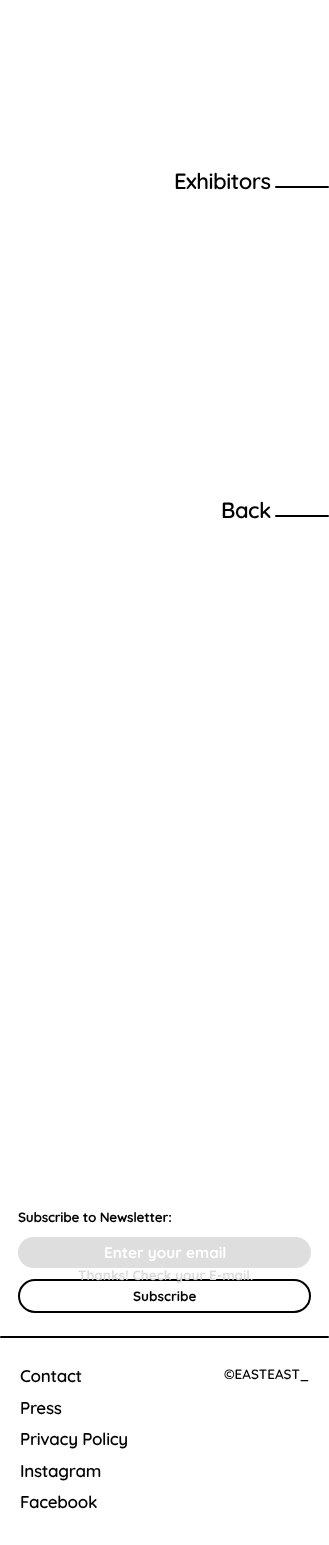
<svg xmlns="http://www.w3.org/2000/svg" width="329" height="1545">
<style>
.a{font:600 22px Quicksand;letter-spacing:-0.5px;fill:#000}
.b{font:bold 13.5px Quicksand;letter-spacing:-0.25px;fill:#000}
.c{font:bold 15.25px Quicksand;fill:#fff}
.d{font:bold 13.5px Quicksand;fill:#000}
.e{font:bold 13.5px Quicksand;fill:#dbdbdb}
.f{font:600 17px Quicksand;letter-spacing:-0.3px;fill:#000}
.g{font:600 13.5px Quicksand;fill:#000}
</style>
<rect width="100%" height="100%" fill="#fff"/>
<rect fill="#000" x="275" y="186" width="54" height="2" rx="1"/>
<rect fill="#000" x="275" y="515" width="54" height="2" rx="1"/>
<rect fill="#dedede" x="18" y="1237" width="293" height="31" rx="15.5"/>
<rect fill="none" stroke="#000" stroke-width="2" x="19" y="1280" width="291" height="32" rx="16"/>
<rect fill="#000" y="1336" width="329" height="2" rx="1"/>
<text class="a" x="174" y="189">Exhibitors</text>
<text class="a" x="221" y="518">Back</text>
<text class="b" x="18" y="1222">Subscribe to Newsletter:</text>
<text class="c" x="104" y="1258">Enter your email</text>
<text class="d" x="133" y="1301">Subscribe</text>
<text class="e" x="78" y="1280">Thanks! Check your E-mail.</text>
<text class="f" x="20" y="1382">Contact</text>
<text class="f" x="20" y="1414">Press</text>
<text class="f" x="20" y="1445">Privacy Policy</text>
<text class="f" x="20" y="1477">Instagram</text>
<text class="f" x="20" y="1508">Facebook</text>
<text class="g" x="224" y="1379">©EASTEAST_</text>
</svg>
